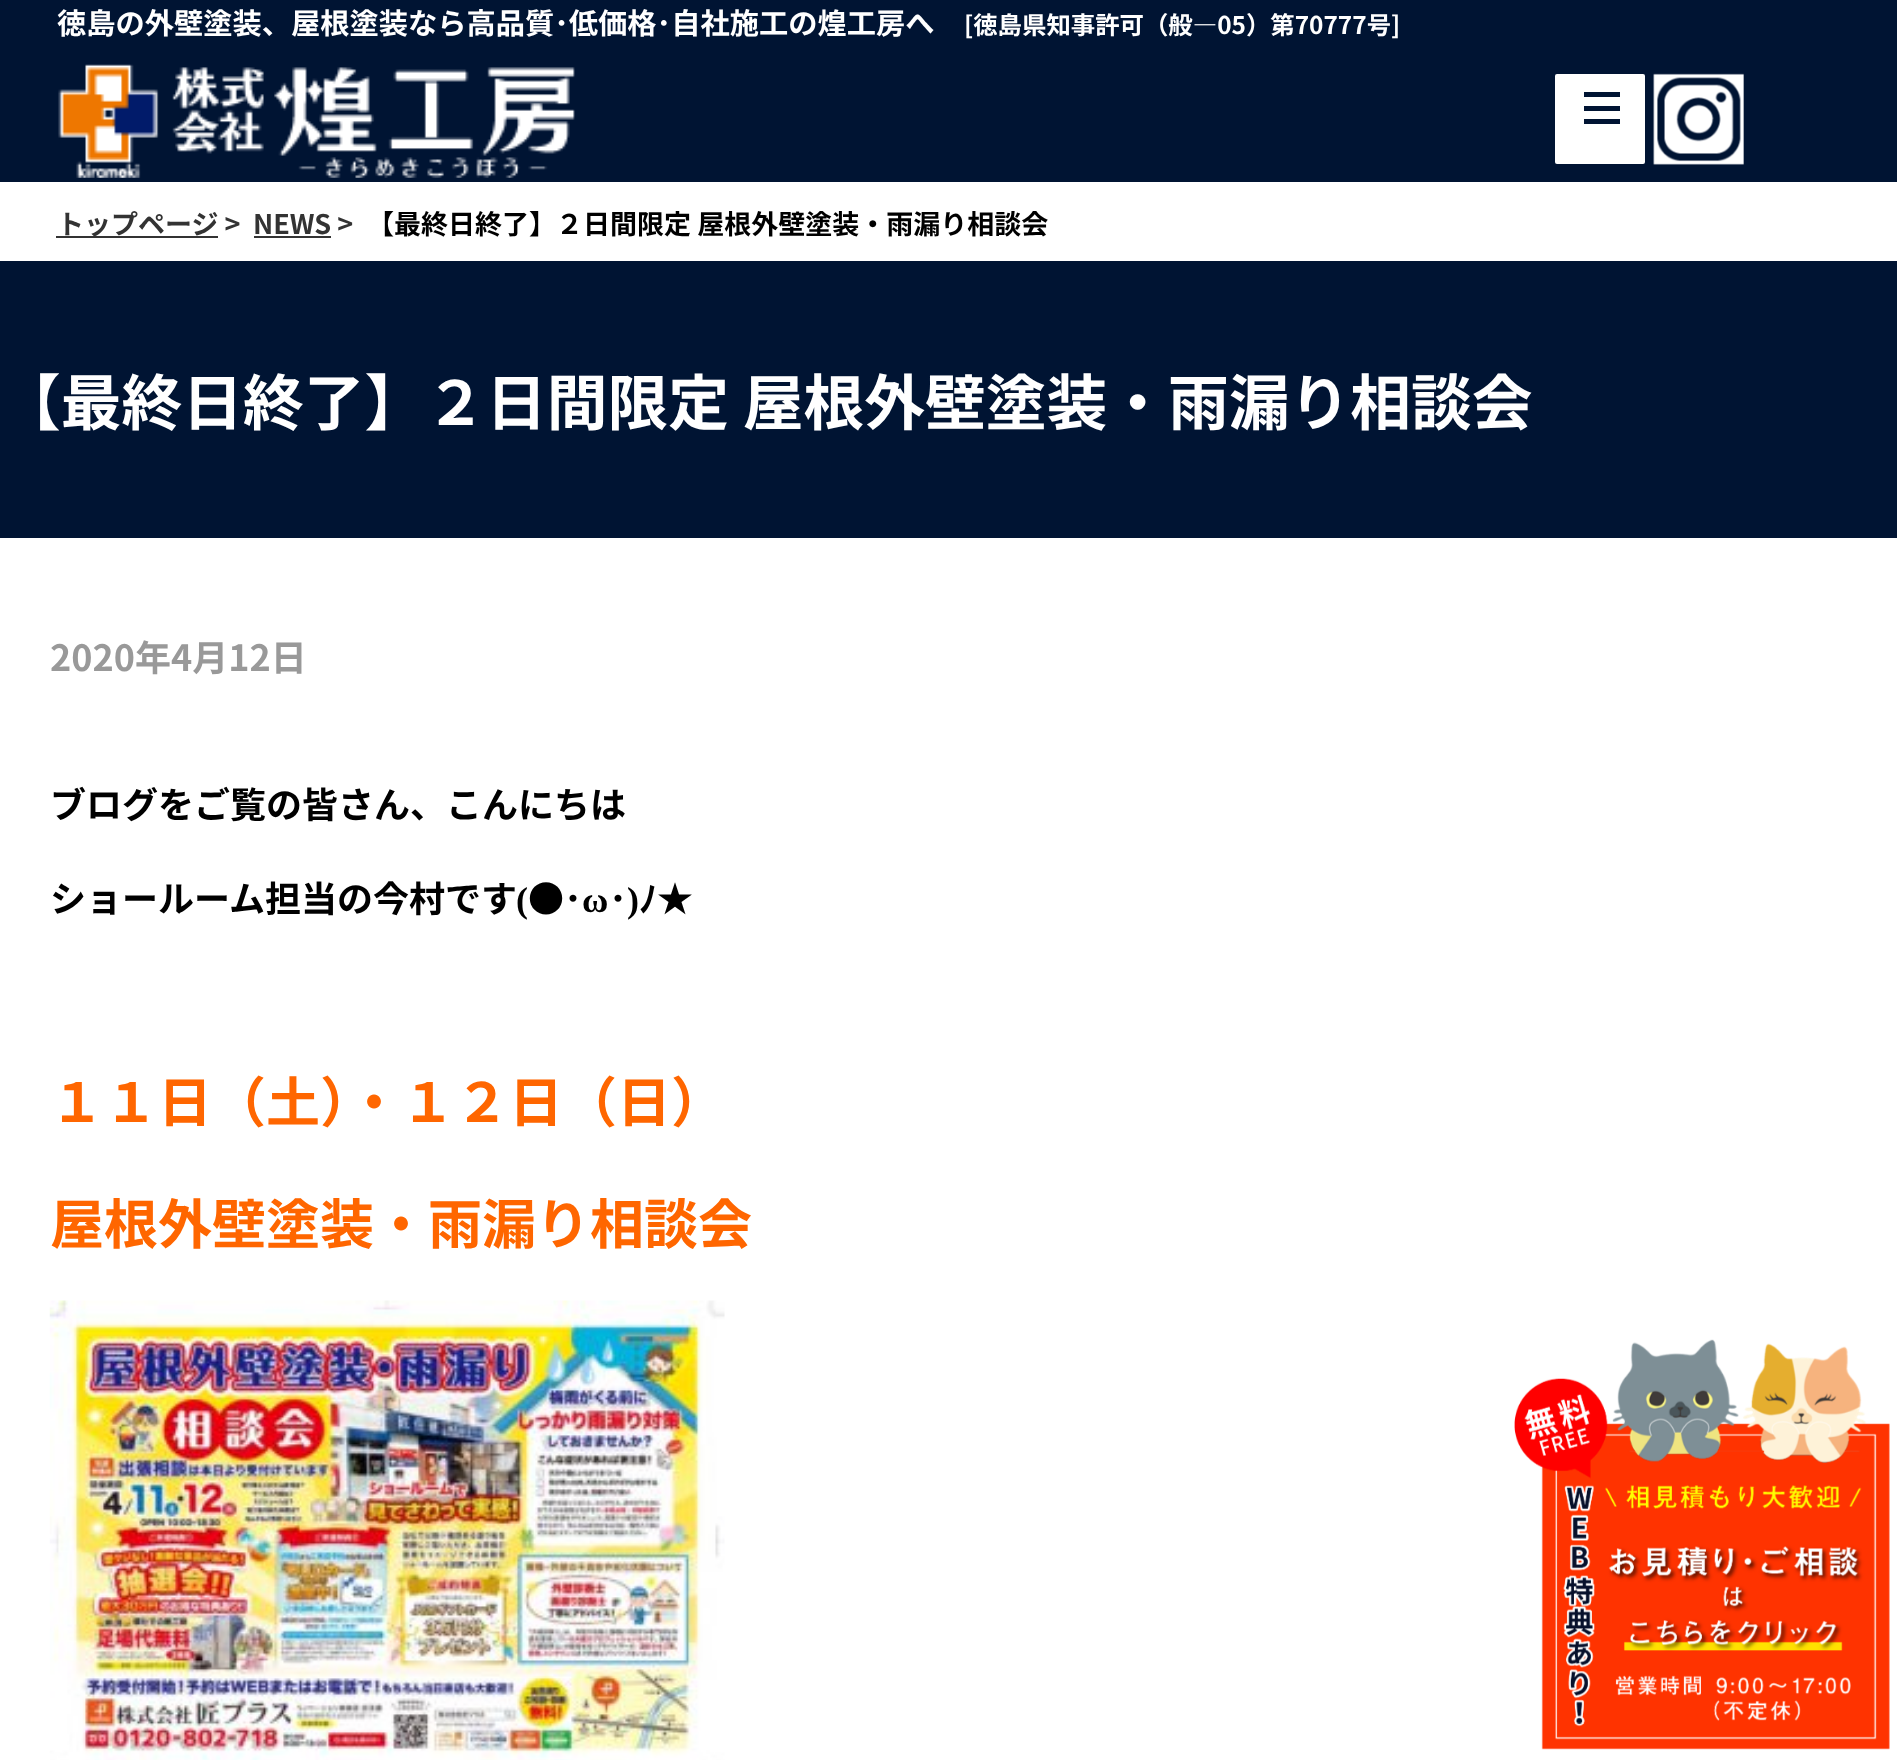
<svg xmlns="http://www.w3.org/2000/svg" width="1897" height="1760">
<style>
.a{font:bold 29.25px Noto Sans JP;fill:#fff}
.b{font:bold 24.4px Noto Sans JP;fill:#fff}
.c{font:bold 27px Noto Sans JP;fill:#333}
.d{font:bold 27px Noto Sans JP;fill:#000}
.e{font:bold 60.75px Noto Sans JP;fill:#fff}
.f{font:bold 36px Noto Sans JP;fill:#999}
.g{font:bold 36px Noto Sans JP;fill:#000}
.h{font:bold 36px Liberation Serif;fill:#000}
.i{font:bold 54px Noto Sans JP;fill:#f60}
</style>
<rect width="100%" height="100%" fill="#fff"/>
<path fill="#001433" d="M0 0h1897v182H0z"/>
<image href="1.png" x="58" y="64" width="517" height="114"/>
<rect fill="#fff" x="1555" y="74" width="90" height="90" rx="2"/>
<path fill="#001433" d="M1584 92h36v5H1584z"/>
<path fill="#001433" d="M1584 106h36v5H1584z"/>
<path fill="#001433" d="M1584 119h36v5H1584z"/>
<image href="2.png" x="1653" y="73" width="91" height="92"/>
<path fill="#333" d="M56 236h162v2H56z"/>
<path fill="#333" d="M254 236h77v2H254z"/>
<path fill="#001433" d="M0 261h1897v277H0z"/>
<image href="3.png" x="49" y="1300" width="676" height="460"/>
<image href="4.png" x="1514" y="1339" width="376" height="411"/>
<text class="a" x="57" y="34">徳島の外壁塗装、屋根塗装なら高品質･低価格･自社施工の煌工房へ</text>
<text class="b" x="964" y="34">[徳島県知事許可（般―05）第70777号]</text>
<text class="c" x="57" y="234">トップページ &gt;</text>
<text class="c" x="253" y="234">NEWS &gt;</text>
<text class="d" x="367" y="234">【最終日終了】２日間限定 屋根外壁塗装・雨漏り相談会</text>
<text class="e" x="0" y="425">【最終日終了】２日間限定 屋根外壁塗装・雨漏り相談会</text>
<text class="f" x="50" y="671">2020年4月12日</text>
<text class="g" x="50" y="818">ブログをご覧の皆さん、こんにちは</text>
<text class="g" x="50" y="912">ショールーム担当の今村です</text>
<text class="h" x="516" y="912">(</text>
<text class="g" x="528" y="912">●･</text>
<text class="h" x="582" y="912">ω</text>
<text class="g" x="609" y="912">･</text>
<text class="h" x="627" y="912">)</text>
<text class="g" x="639" y="912">ﾉ★</text>
<text class="i" x="50" y="1122">１１日（土）・１２日（日）</text>
<text class="i" x="50" y="1244">屋根外壁塗装・雨漏り相談会</text>
</svg>
